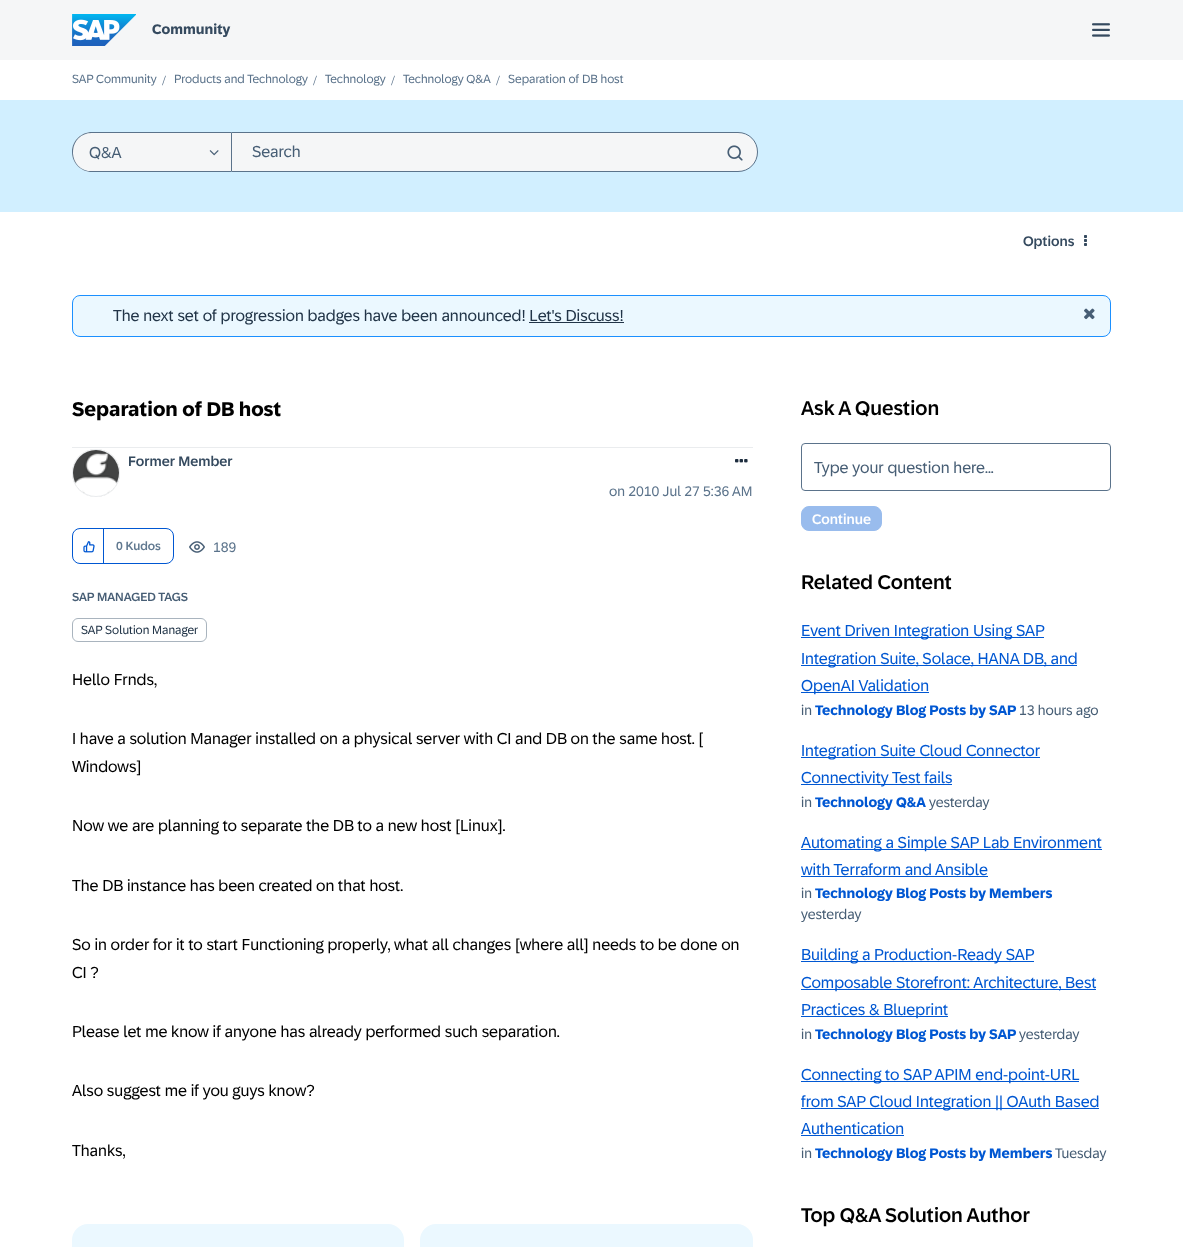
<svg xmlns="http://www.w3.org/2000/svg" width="1183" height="1247">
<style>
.a{font:bold 14px '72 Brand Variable';fill:#354a5f}
.b{font:12px '72 Brand Variable';fill:#5b738b}
.c{font:14px Liberation Serif;fill:#5b738b}
.d{font:16px '72 Brand Variable';fill:#475e75}
.e{font:500 14px '72 Brand Variable';fill:#354a5f}
.f{font:16px '72 Brand Variable';fill:#223548}
.g{font:bold 20px '72 Brand Variable';fill:#000}
.h{font:14px '72 Brand Variable';fill:#5b738b}
.i{font:500 12px '72 Brand Variable';fill:#617990}
.j{font:500 12px '72 Brand Variable';fill:#475e75}
.k{font:12px '72 Brand Variable';fill:#223548}
.l{font:16px '72 Brand Variable';fill:#000}
.m{font:500 20px '72 Brand Variable';fill:#000}
.n{font:500 14px '72 Brand Variable';fill:#fff}
.o{font:16px '72 Brand Variable';fill:#0057d2}
.p{font:14px '72 Brand Variable';fill:#475e75}
.q{font:bold 14px '72 Brand Variable';fill:#0057d2}
</style>
<defs>
<clipPath id="clip1"><path d="M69 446h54v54h-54zm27 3c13.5 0 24 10.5 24 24c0 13.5-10.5 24-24 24c-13.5 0-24-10.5-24-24c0-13.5 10.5-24 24-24z" clip-rule="evenodd"/></clipPath>
</defs>
<rect width="100%" height="100%" fill="#fff"/>
<path fill="#f5f6f7" d="M0 0h1183v60H0z"/>
<image href="1.png" x="72" y="14" width="64" height="32"/>
<image href="2.png" x="1092" y="23" width="18" height="14"/>
<path fill="#d1efff" d="M0 100h1183v112H0z"/>
<path fill="#f5f6f7" d="M92 132h139v40h-139c-11 0-20-9-20-20c0-11 9-20 20-20z"/>
<path fill="#5b738b" fill-rule="evenodd" d="M92 132h139v40h-139c-11 0-20-9-20-20c0-11 9-20 20-20zm0 1h139v38h-143c-22-5-19-38 4-38z"/>
<image href="3.png" x="209" y="150" width="10" height="6"/>
<path fill="#f5f6f7" stroke="#5b738b" d="M231.5 132.5h506.5c11 0 19.5 8.5 19.5 19.5c0 11-8.5 19.5-19.5 19.5h-506.5z"/>
<image href="4.png" x="727" y="145" width="16" height="16"/>
<image href="5.png" x="1084" y="235" width="3" height="11"/>
<rect fill="#ebf8ff" stroke="#1b90ff" x="72.5" y="295.5" width="1038" height="41" rx="7.5"/>
<path fill="#223548" d="M529 322h95v1H529z"/>
<image href="6.png" x="1084" y="308" width="11" height="12"/>
<path fill="#eaecee" d="M72 447h681v1H72z"/>
<g clip-path="url(#clip1)">
<rect fill="#c4c4c4" filter="blur(0.5px)" x="72" y="449" width="48" height="48" rx="24"/>
</g>
<circle fill="none" stroke="#eaecee" cx="96" cy="473" r="23.5"/>
<image href="7.png" x="73" y="450" width="46" height="43"/>
<image href="8.png" x="735" y="459" width="13" height="4"/>
<rect fill="none" stroke="#0057d2" x="72.5" y="528.5" width="101" height="35" rx="7.5"/>
<path fill="#0057d2" d="M103 529h1v35H103z"/>
<image href="9.png" x="83" y="541" width="12" height="12"/>
<image href="10.png" x="189" y="541" width="16" height="12"/>
<rect fill="none" stroke="#a9b4be" x="72.5" y="618.5" width="134" height="23" rx="5.5"/>
<rect fill="#ebf8ff" x="72" y="1224" width="332" height="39" rx="16"/>
<rect fill="#ebf8ff" x="420" y="1224" width="333" height="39" rx="16"/>
<rect fill="none" stroke="#5b738b" x="801.5" y="443.5" width="309" height="47" rx="3.5"/>
<rect fill="#99bced" stroke="#99bced" x="801.5" y="506.5" width="80" height="24" rx="7.5"/>
<path fill="#0057d2" d="M801 637h243v1H801z"/>
<path fill="#0057d2" d="M801 665h276v1H801z"/>
<path fill="#0057d2" d="M801 692h128v1H801z"/>
<path fill="#0057d2" d="M801 757h239v1H801z"/>
<path fill="#0057d2" d="M801 784h151v1H801z"/>
<path fill="#0057d2" d="M801 849h301v1H801z"/>
<path fill="#0057d2" d="M801 876h187v1H801z"/>
<path fill="#0057d2" d="M801 961h233v1H801z"/>
<path fill="#0057d2" d="M801 989h295v1H801z"/>
<path fill="#0057d2" d="M801 1016h147v1H801z"/>
<path fill="#0057d2" d="M801 1081h278v1H801z"/>
<path fill="#0057d2" d="M801 1108h298v1H801z"/>
<path fill="#0057d2" d="M801 1135h103v1H801z"/>
<text class="a" x="152" y="34">Community</text>
<text class="b" x="72" y="83">SAP Community</text>
<text class="c" x="162" y="85">/</text>
<text class="b" x="174" y="83">Products and Technology</text>
<text class="c" x="313" y="85">/</text>
<text class="b" x="325" y="83">Technology</text>
<text class="c" x="391" y="85">/</text>
<text class="b" x="403" y="83">Technology Q&amp;A</text>
<text class="c" x="496" y="85">/</text>
<text class="b" x="508" y="83">Separation of DB host</text>
<text class="d" x="89" y="158">Q&amp;A</text>
<text class="d" x="252" y="157">Search</text>
<text class="e" x="1023" y="246">Options</text>
<text class="f" x="113" y="321">The next set of progression badges have been announced! Let's Discuss!</text>
<text class="g" x="72" y="416">Separation of DB host</text>
<text class="e" x="128" y="466">Former Member</text>
<text class="h" x="609" y="496">on 2010 Jul 27 5:36 AM</text>
<text class="i" x="116" y="550">0 Kudos</text>
<text class="h" x="213" y="552">189</text>
<text class="j" x="72" y="601">SAP MANAGED TAGS</text>
<text class="k" x="81" y="634">SAP Solution Manager</text>
<text class="l" x="72" y="685">Hello Frnds,</text>
<text class="l" x="72" y="744">I have a solution Manager installed on a physical server with CI and DB on the same host. [</text>
<text class="l" x="72" y="772">Windows]</text>
<text class="l" x="72" y="831">Now we are planning to separate the DB to a new host [Linux].</text>
<text class="l" x="72" y="891">The DB instance has been created on that host.</text>
<text class="l" x="72" y="950">So in order for it to start Functioning properly, what all changes [where all] needs to be done on</text>
<text class="l" x="72" y="978">CI ?</text>
<text class="l" x="72" y="1037">Please let me know if anyone has already performed such separation.</text>
<text class="l" x="72" y="1096">Also suggest me if you guys know?</text>
<text class="l" x="72" y="1156">Thanks,</text>
<text class="m" x="801" y="415">Ask A Question</text>
<text class="d" x="814" y="473">Type your question here...</text>
<text class="n" x="812" y="524">Continue</text>
<text class="m" x="801" y="589">Related Content</text>
<text class="o" x="801" y="636">Event Driven Integration Using SAP</text>
<text class="o" x="801" y="664">Integration Suite, Solace, HANA DB, and</text>
<text class="o" x="801" y="691">OpenAI Validation</text>
<text class="p" x="801" y="715">in</text>
<text class="q" x="815" y="715">Technology Blog Posts by SAP</text>
<text class="p" x="1019" y="715">13 hours ago</text>
<text class="o" x="801" y="756">Integration Suite Cloud Connector</text>
<text class="o" x="801" y="783">Connectivity Test fails</text>
<text class="p" x="801" y="807">in</text>
<text class="q" x="815" y="807">Technology Q&amp;A</text>
<text class="p" x="929" y="807">yesterday</text>
<text class="o" x="801" y="848">Automating a Simple SAP Lab Environment</text>
<text class="o" x="801" y="875">with Terraform and Ansible</text>
<text class="p" x="801" y="898">in</text>
<text class="q" x="815" y="898">Technology Blog Posts by Members</text>
<text class="p" x="801" y="919">yesterday</text>
<text class="o" x="801" y="960">Building a Production-Ready SAP</text>
<text class="o" x="801" y="988">Composable Storefront: Architecture, Best</text>
<text class="o" x="801" y="1015">Practices &amp; Blueprint</text>
<text class="p" x="801" y="1039">in</text>
<text class="q" x="815" y="1039">Technology Blog Posts by SAP</text>
<text class="p" x="1019" y="1039">yesterday</text>
<text class="o" x="801" y="1080">Connecting to SAP APIM end-point-URL</text>
<text class="o" x="801" y="1107">from SAP Cloud Integration || OAuth Based</text>
<text class="o" x="801" y="1134">Authentication</text>
<text class="p" x="801" y="1158">in</text>
<text class="q" x="815" y="1158">Technology Blog Posts by Members</text>
<text class="p" x="1055" y="1158">Tuesday</text>
<text class="m" x="801" y="1222">Top Q&amp;A Solution Author</text>
</svg>
